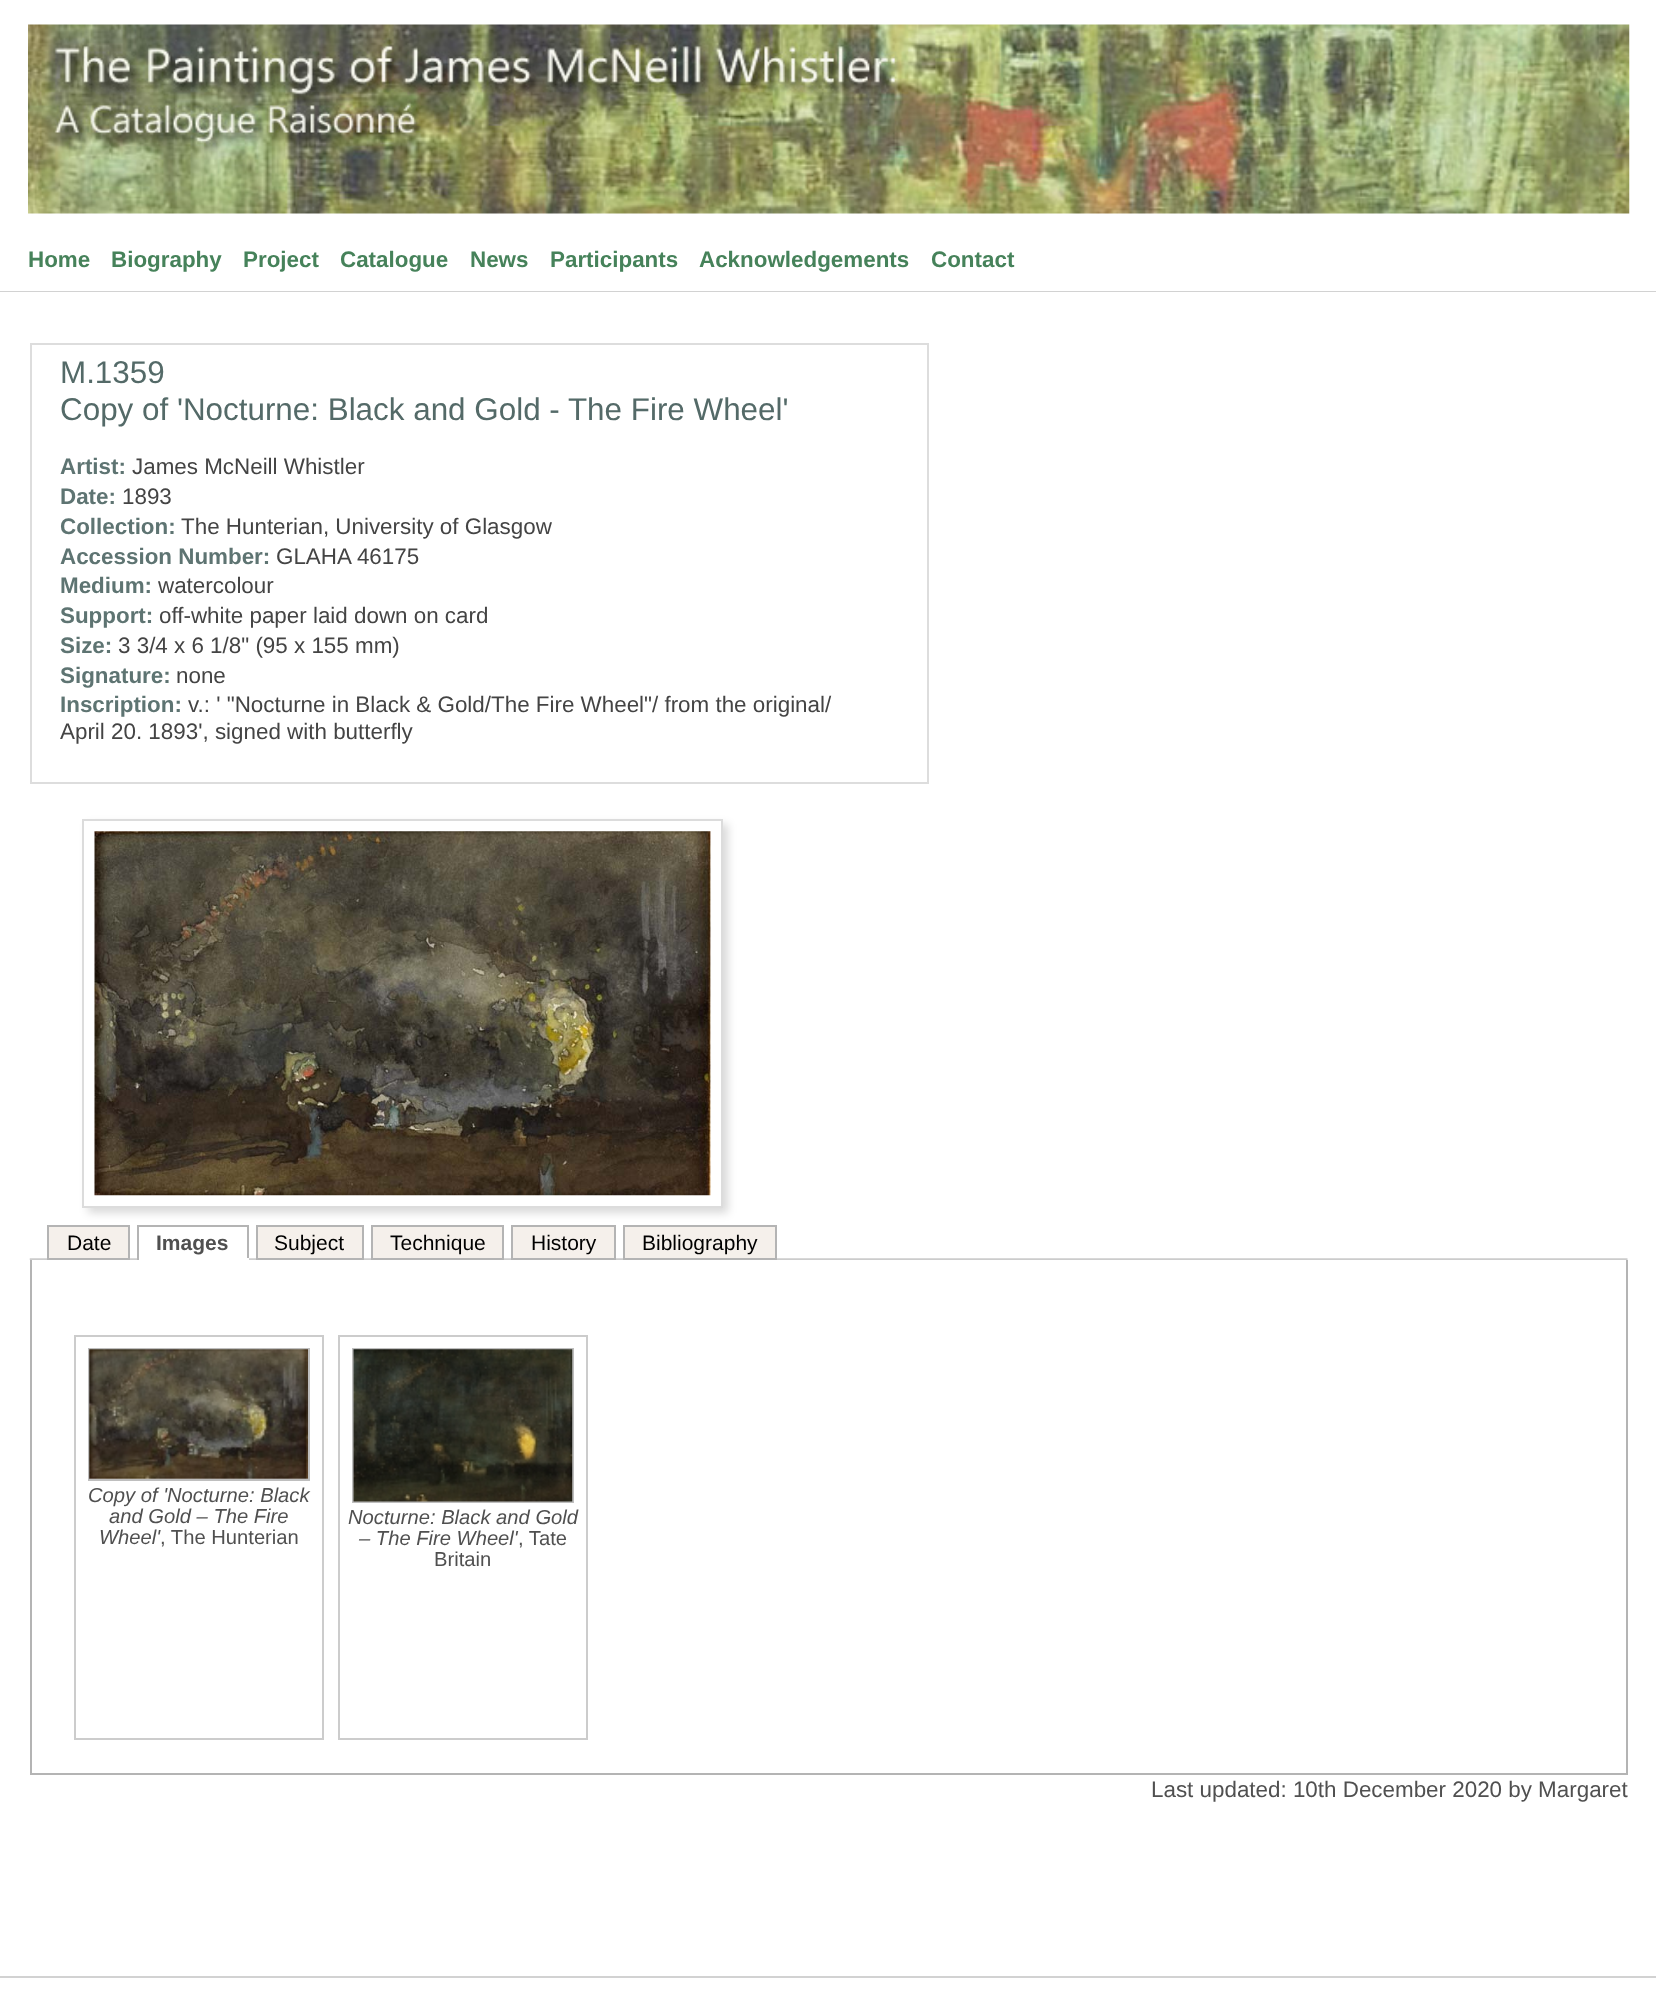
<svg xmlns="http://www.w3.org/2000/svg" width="1656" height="1993">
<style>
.a{font:bold 22.4px Liberation Sans;fill:#46825a}
.b{font:31.4px Liberation Sans;fill:#546a68}
.c{font:bold 22.4px Liberation Sans;fill:#5e7472}
.d{font:22.4px Liberation Sans;fill:#444}
.e{font:21px Liberation Sans;fill:#000}
.f{font:bold 21px Liberation Sans;fill:#505050}
.g{font:italic 20.2px Liberation Sans;fill:#505050}
.h{font:20.2px Liberation Sans;fill:#505050}
.i{font:22.4px Liberation Sans;fill:#505050}
</style>
<defs>
<clipPath id="clip1"><path d="M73 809h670v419h-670zm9 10h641v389h-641z" clip-rule="evenodd"/></clipPath>
</defs>
<rect width="100%" height="100%" fill="#fff"/>
<image href="1.png" x="28" y="24" width="1602" height="190"/>
<path fill="#d2d2d2" d="M0 291h1656v1H0z"/>
<path fill="none" stroke="#ddd" stroke-width="2" d="M31 344h897v439H31z"/>
<g clip-path="url(#clip1)">
<path fill="#00000026" filter="blur(4.5px)" d="M88 824h640v389H88z"/>
</g>
<path fill="none" stroke="#dcdcdc" stroke-width="2" d="M83 820h639v387H83z"/>
<image href="2.png" x="94" y="831" width="617" height="365"/>
<image href="3.png" x="29" y="1258" width="1599" height="2"/>
<path fill="#f5f0eb" stroke="#b4b4b4" stroke-width="2" d="M48 1226h81v33H48z"/>
<path fill="#b4b4b4" d="M137 1225h112v2H137z"/>
<path fill="#b4b4b4" d="M247 1225h2v35H247z"/>
<path fill="#fff" d="M137 1258h112v2H137z"/>
<path fill="#b4b4b4" d="M137 1225h2v35H137z"/>
<path fill="#f5f0eb" stroke="#b4b4b4" stroke-width="2" d="M257 1226h106v33H257z"/>
<path fill="#f5f0eb" stroke="#b4b4b4" stroke-width="2" d="M372 1226h131v33H372z"/>
<path fill="#f5f0eb" stroke="#b4b4b4" stroke-width="2" d="M512 1226h103v33H512z"/>
<path fill="#f5f0eb" stroke="#b4b4b4" stroke-width="2" d="M624 1226h152v33H624z"/>
<path fill="#b4b4b4" d="M1626 1260h2v515H1626z"/>
<path fill="#b4b4b4" d="M30 1773h1598v2H30z"/>
<path fill="#b4b4b4" d="M30 1260h2v515H30z"/>
<path fill="none" stroke="#ccc" stroke-width="2" d="M75 1336h248v403H75z"/>
<path fill="none" stroke="#bebebe" stroke-width="2" d="M89 1349h220v131H89z"/>
<image href="4.png" x="89" y="1349" width="219" height="130"/>
<path fill="none" stroke="#ccc" stroke-width="2" d="M339 1336h248v403H339z"/>
<path fill="none" stroke="#bebebe" stroke-width="2" d="M353 1349h220v153H353z"/>
<image href="5.png" x="353" y="1349" width="220" height="153"/>
<path fill="#d2d2d2" d="M0 1976h1656v2H0z"/>
<text class="a" x="28" y="267">Home</text>
<text class="a" x="111" y="267">Biography</text>
<text class="a" x="243" y="267">Project</text>
<text class="a" x="340" y="267">Catalogue</text>
<text class="a" x="470" y="267">News</text>
<text class="a" x="550" y="267">Participants</text>
<text class="a" x="699" y="267">Acknowledgements</text>
<text class="a" x="931" y="267">Contact</text>
<text class="b" x="60" y="383">M.1359</text>
<text class="b" x="60" y="420">Copy of 'Nocturne: Black and Gold - The Fire Wheel'</text>
<text class="c" x="60" y="474">Artist:</text>
<text class="d" x="132" y="474">James McNeill Whistler</text>
<text class="c" x="60" y="504">Date:</text>
<text class="d" x="122" y="504">1893</text>
<text class="c" x="60" y="534">Collection:</text>
<text class="d" x="181" y="534">The Hunterian, University of Glasgow</text>
<text class="c" x="60" y="564">Accession Number:</text>
<text class="d" x="276" y="564">GLAHA 46175</text>
<text class="c" x="60" y="593">Medium:</text>
<text class="d" x="158" y="593">watercolour</text>
<text class="c" x="60" y="623">Support:</text>
<text class="d" x="159" y="623">off-white paper laid down on card</text>
<text class="c" x="60" y="653">Size:</text>
<text class="d" x="118" y="653">3 3/4 x 6 1/8" (95 x 155 mm)</text>
<text class="c" x="60" y="683">Signature:</text>
<text class="d" x="176" y="683">none</text>
<text class="c" x="60" y="712">Inscription:</text>
<text class="d" x="188" y="712">v.: ' "Nocturne in Black &amp; Gold/The Fire Wheel"/ from the original/</text>
<text class="d" x="60" y="739">April 20. 1893', signed with butterfly</text>
<text class="e" x="67" y="1250">Date</text>
<text class="f" x="156" y="1250">Images</text>
<text class="e" x="274" y="1250">Subject</text>
<text class="e" x="390" y="1250">Technique</text>
<text class="e" x="531" y="1250">History</text>
<text class="e" x="642" y="1250">Bibliography</text>
<text class="g" x="88" y="1502">Copy of 'Nocturne: Black</text>
<text class="g" x="109" y="1523">and Gold – The Fire</text>
<text class="g" x="99" y="1544">Wheel'</text>
<text class="h" x="160" y="1544">, The Hunterian</text>
<text class="g" x="348" y="1524">Nocturne: Black and Gold</text>
<text class="g" x="359" y="1545">– The Fire Wheel'</text>
<text class="h" x="518" y="1545">, Tate</text>
<text class="h" x="434" y="1566">Britain</text>
<text class="i" x="1151" y="1797">Last updated: 10th December 2020 by Margaret</text>
</svg>
